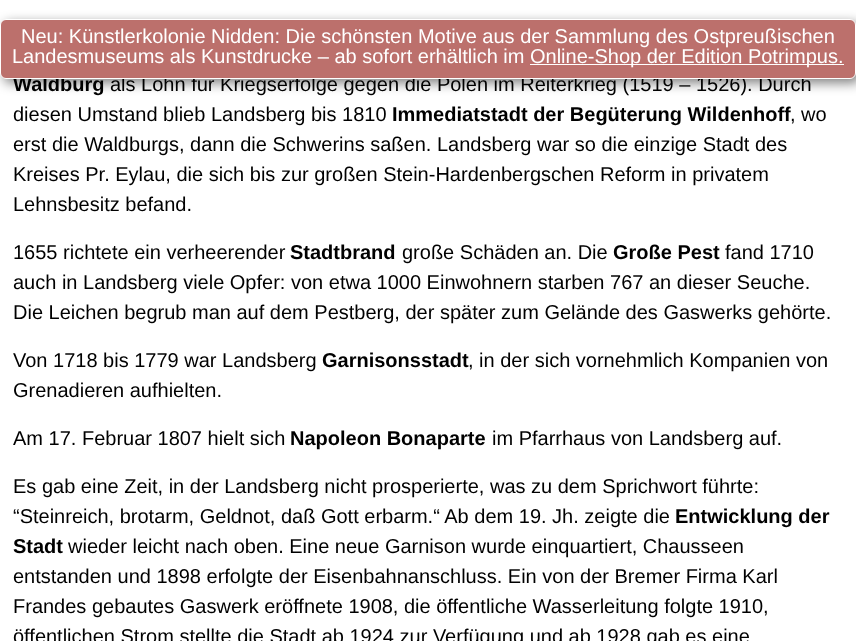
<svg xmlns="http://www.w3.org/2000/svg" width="856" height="641">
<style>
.a{font:bold 20px Liberation Sans;fill:#000}
.b{font:20px Liberation Sans;fill:#000}
.c{font:20px Liberation Sans;fill:#fff}
</style>
<rect width="100%" height="100%" fill="#fff"/>
<rect fill="#00000080" filter="blur(6px)" x="4" y="23" width="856" height="60" rx="6"/>
<text class="a" x="13" y="91">Waldburg</text>
<text class="b" x="110" y="91">als Lohn für Kriegserfolge gegen die Polen im Reiterkrieg (1519 – 1526). Durch</text>
<rect fill="#bc706c" stroke="#fff" x="0.5" y="19.5" width="855" height="59" rx="5.5"/>
<path fill="#fff" d="M530 64h314v1H530z"/>
<text class="c" x="530" y="63">Online-Shop der Edition Potrimpus.</text>
<text class="c" x="12" y="63">Landesmuseums als Kunstdrucke – ab sofort erhältlich im</text>
<text class="c" x="21" y="43">Neu: Künstlerkolonie Nidden: Die schönsten Motive aus der Sammlung des Ostpreußischen</text>
<text class="b" x="13" y="121">diesen Umstand blieb Landsberg bis 1810</text>
<text class="a" x="392" y="121">Immediatstadt der Begüterung Wildenhoff</text>
<text class="b" x="790" y="121">, wo</text>
<text class="b" x="13" y="151">erst die Waldburgs, dann die Schwerins saßen. Landsberg war so die einzige Stadt des</text>
<text class="b" x="13" y="181">Kreises Pr. Eylau, die sich bis zur großen Stein-Hardenbergschen Reform in privatem</text>
<text class="b" x="13" y="211">Lehnsbesitz befand.</text>
<text class="b" x="13" y="259">1655 richtete ein verheerender</text>
<text class="a" x="290" y="259">Stadtbrand</text>
<text class="b" x="402" y="259">große Schäden an. Die</text>
<text class="a" x="613" y="259">Große Pest</text>
<text class="b" x="725" y="259">fand 1710</text>
<text class="b" x="13" y="289">auch in Landsberg viele Opfer: von etwa 1000 Einwohnern starben 767 an dieser Seuche.</text>
<text class="b" x="13" y="319">Die Leichen begrub man auf dem Pestberg, der später zum Gelände des Gaswerks gehörte.</text>
<text class="b" x="13" y="367">Von 1718 bis 1779 war Landsberg</text>
<text class="a" x="322" y="367">Garnisonsstadt</text>
<text class="b" x="468" y="367">, in der sich vornehmlich Kompanien von</text>
<text class="b" x="13" y="397">Grenadieren aufhielten.</text>
<text class="b" x="13" y="445">Am 17. Februar 1807 hielt sich</text>
<text class="a" x="290" y="445">Napoleon Bonaparte</text>
<text class="b" x="492" y="445">im Pfarrhaus von Landsberg auf.</text>
<text class="b" x="13" y="493">Es gab eine Zeit, in der Landsberg nicht prosperierte, was zu dem Sprichwort führte:</text>
<text class="b" x="13" y="523">“Steinreich, brotarm, Geldnot, daß Gott erbarm.“ Ab dem 19. Jh. zeigte die</text>
<text class="a" x="675" y="523">Entwicklung der</text>
<text class="a" x="13" y="553">Stadt</text>
<text class="b" x="68" y="553">wieder leicht nach oben. Eine neue Garnison wurde einquartiert, Chausseen</text>
<text class="b" x="13" y="583">entstanden und 1898 erfolgte der Eisenbahnanschluss. Ein von der Bremer Firma Karl</text>
<text class="b" x="13" y="613">Frandes gebautes Gaswerk eröffnete 1908, die öffentliche Wasserleitung folgte 1910,</text>
<text class="b" x="13" y="643">öffentlichen Strom stellte die Stadt ab 1924 zur Verfügung und ab 1928 gab es eine</text>
</svg>
